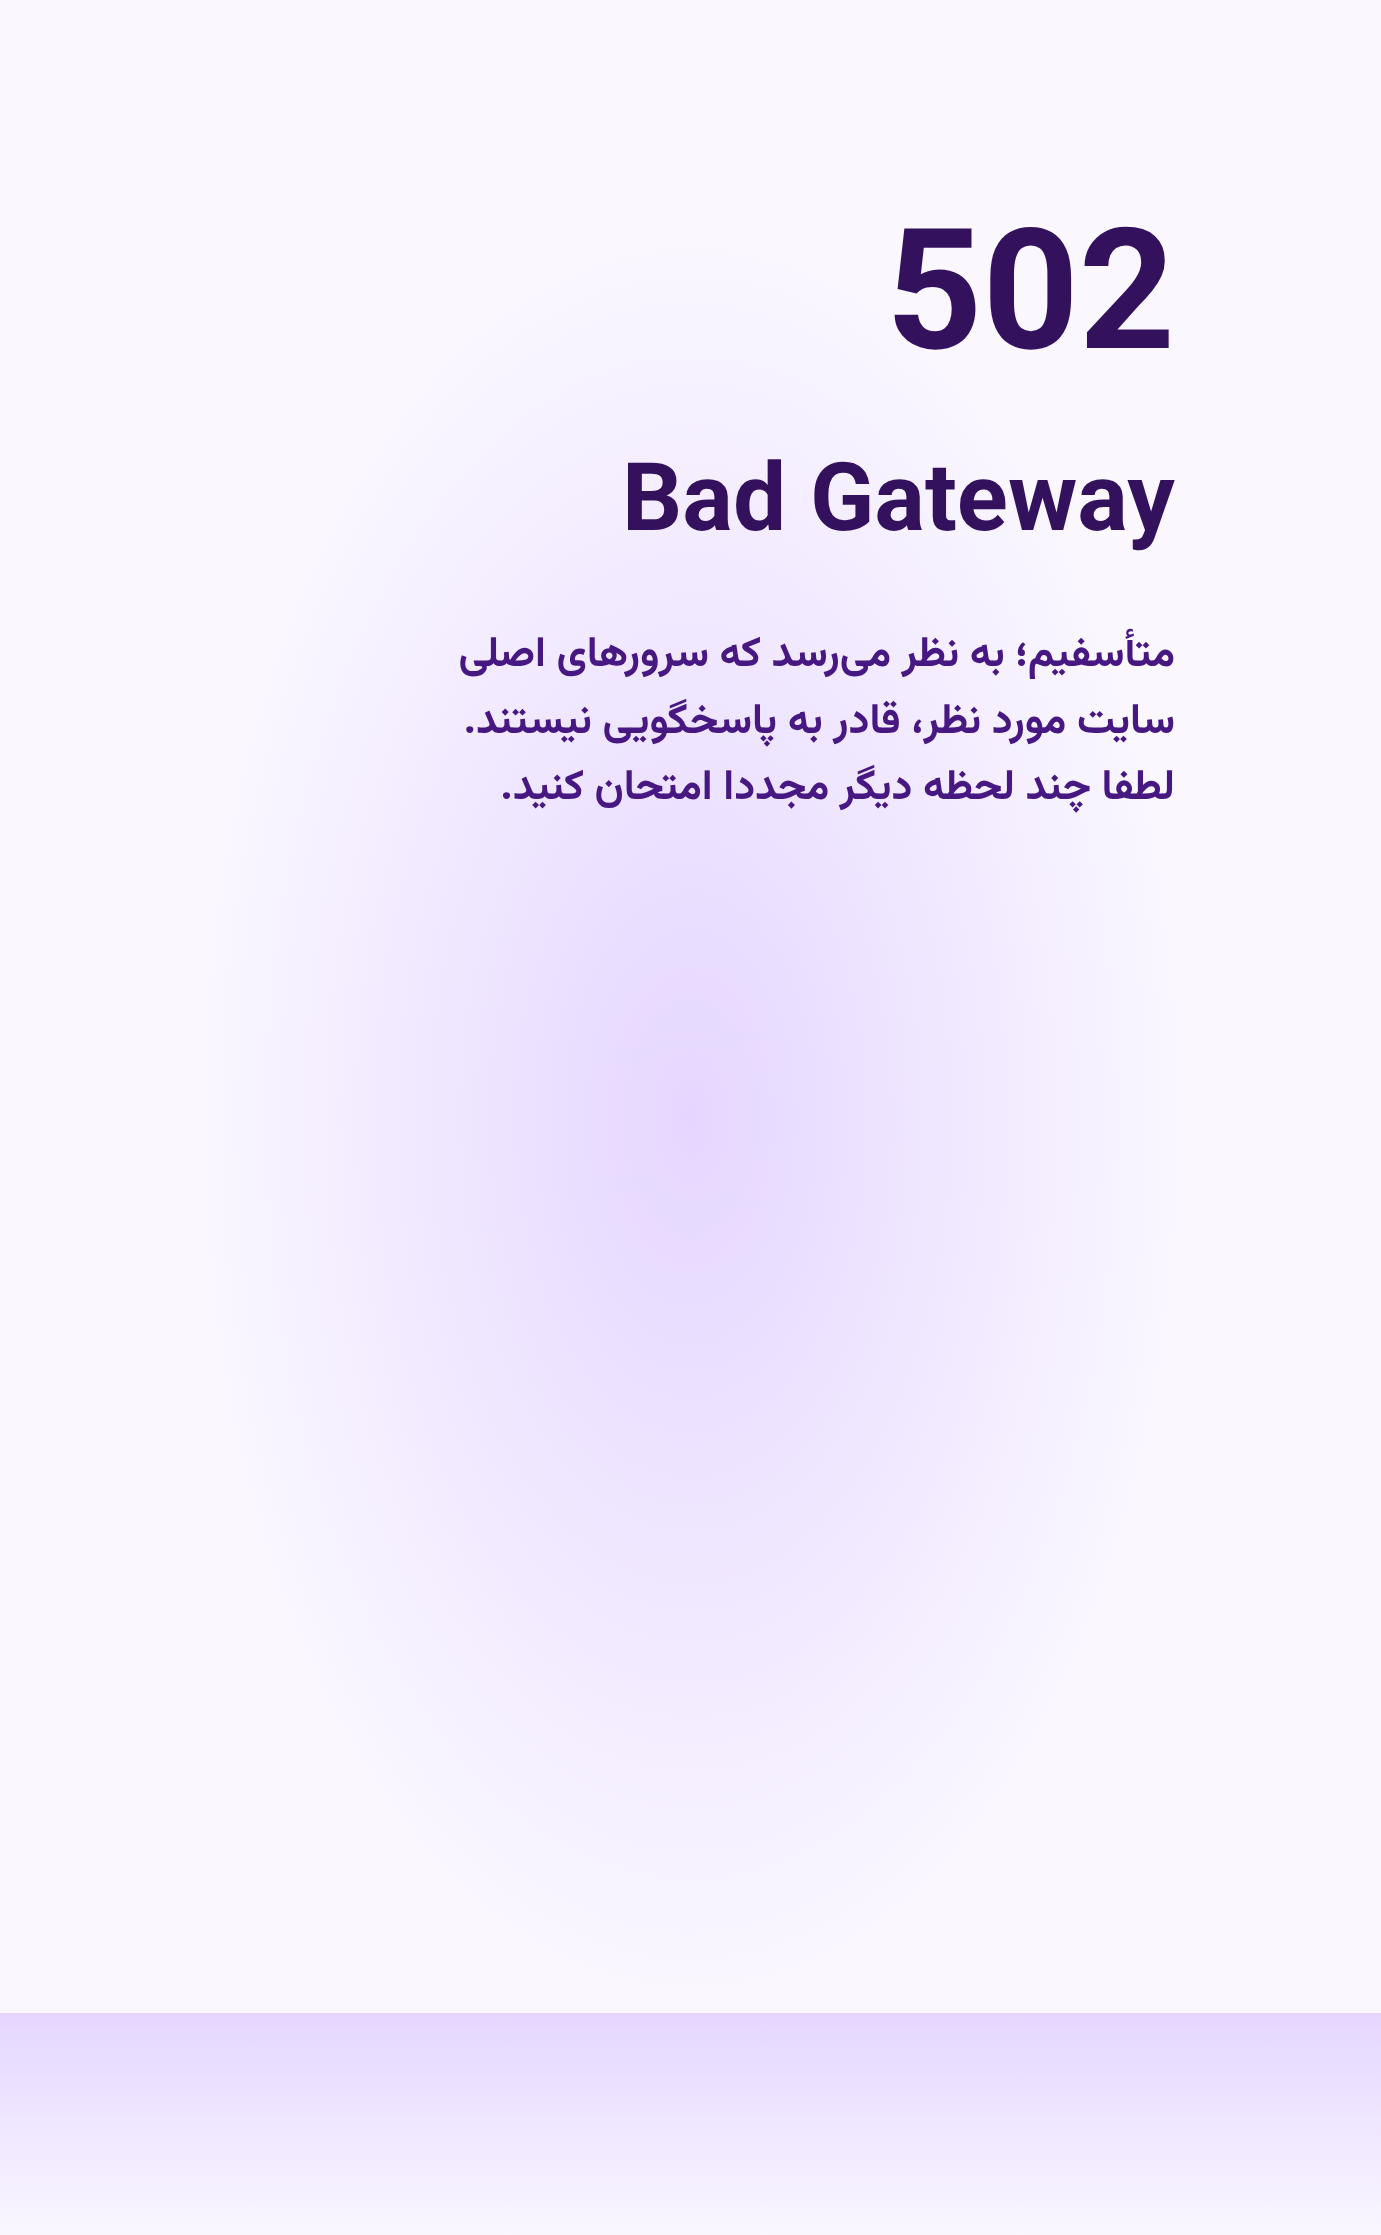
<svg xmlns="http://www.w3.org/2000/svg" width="1381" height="2235">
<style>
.a{font:bold 168px Vazirmatn;fill:#33115d}
.b{font:bold 94.5px Vazirmatn;fill:#33115d}
.c{font:bold 42px Vazirmatn;direction:rtl;fill:#471882}
</style>
<defs>
<radialGradient id="g1" gradientUnits="userSpaceOnUse" cx="0" cy="0" r="1" gradientTransform="matrix(493 0 0 881 691 1118)"><stop offset="0" stop-color="#e5d6ff"/><stop offset="1" stop-color="#faf7ff"/></radialGradient>
<linearGradient id="g2" gradientUnits="userSpaceOnUse" x1="691" y1="2013" x2="691" y2="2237"><stop offset="0" stop-color="#e5d6ff"/><stop offset="1" stop-color="#faf7ff"/></linearGradient>
</defs>
<rect width="100%" height="100%" fill="#fff"/>
<path fill="url(#g1)" d="M0 0h1381v2013H0z"/>
<path fill="url(#g2)" d="M0 2013h1381v222H0z"/>
<text class="a" x="886" y="348">502</text>
<text class="b" x="622" y="530">Bad Gateway</text>
<text class="c" x="1175" y="666">متأسفیم؛ به نظر می‌رسد که سرورهای اصلی</text>
<text class="c" x="1175" y="733">سایت مورد نظر، قادر به پاسخگویی نیستند.</text>
<text class="c" x="1175" y="799">لطفا چند لحظه دیگر مجددا امتحان کنید.</text>
</svg>
